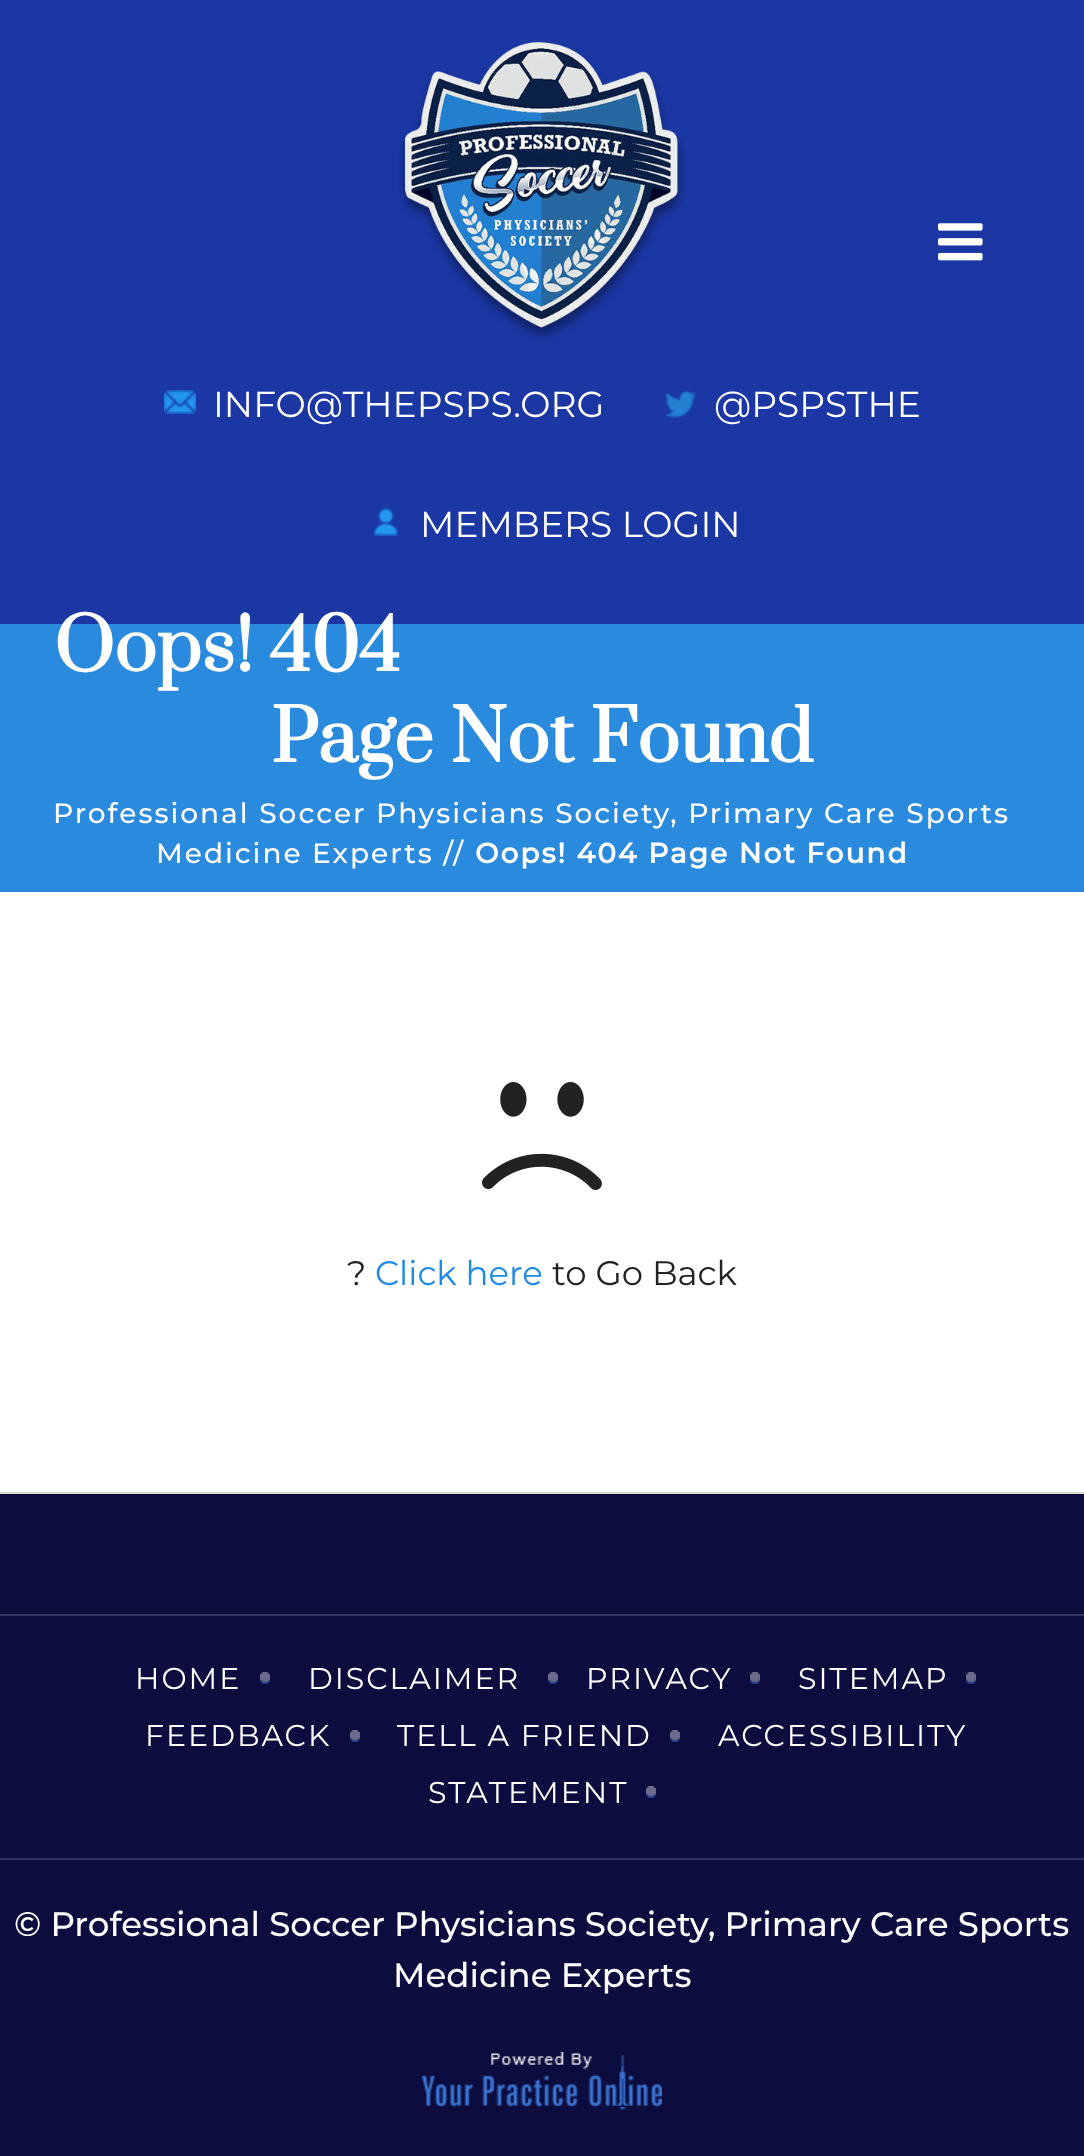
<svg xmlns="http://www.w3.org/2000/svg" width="1084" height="2156">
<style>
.a{font:36px Montserrat;fill:#fff}
.b{font:bold 70px Prata;fill:#fff}
.c{font:500 28px Montserrat;letter-spacing:2px;fill:#fff}
.d{font:bold 28px Montserrat;letter-spacing:2px;fill:#fff}
.e{font:34px Montserrat;fill:#222}
.f{font:34px Montserrat;fill:#1e89e6}
.g{font:30px Montserrat;letter-spacing:2px;fill:#fff}
.h{font:500 34px Montserrat;fill:#fff}
</style>
<rect width="100%" height="100%" fill="#fff"/>
<path fill="#1a37a4" d="M0 0h1084v624H0z"/>
<image href="1.png" x="938" y="223" width="45" height="38"/>
<image href="2.png" x="398" y="42" width="288" height="299"/>
<image href="3.png" x="164" y="390" width="32" height="24"/>
<image href="4.png" x="665" y="390" width="31" height="28"/>
<image href="5.png" x="374" y="508" width="24" height="28"/>
<path fill="#2a8add" d="M0 624h1084v268H0z"/>
<path fill="#dbdbdb" d="M0 1492h1084v2H0z"/>
<image href="6.png" x="482" y="1082" width="120" height="108"/>
<path fill="#0d0c3f" d="M0 1494h1084v662H0z"/>
<path fill="#31305c" d="M0 1614h1084v2H0z"/>
<path fill="#31305c" d="M0 1858h1084v2H0z"/>
<image href="7.png" x="260" y="1672" width="10" height="12"/>
<image href="7.png" x="548" y="1672" width="10" height="12"/>
<image href="7.png" x="750" y="1672" width="10" height="12"/>
<image href="7.png" x="966" y="1672" width="10" height="12"/>
<image href="7.png" x="350" y="1730" width="10" height="12"/>
<image href="7.png" x="670" y="1730" width="10" height="12"/>
<image href="7.png" x="646" y="1786" width="10" height="12"/>
<image href="8.png" x="422" y="2052" width="240" height="58"/>
<text class="a" x="213" y="417">INFO@THEPSPS.ORG</text>
<text class="a" x="714" y="417">@PSPSTHE</text>
<text class="a" x="420" y="537">MEMBERS LOGIN</text>
<text class="b" x="54" y="671">Oops! 404</text>
<text class="b" x="271" y="762">Page Not Found</text>
<text class="c" x="53" y="823">Professional Soccer Physicians Society, Primary Care Sports</text>
<text class="c" x="156" y="863">Medicine Experts //</text>
<text class="d" x="475" y="863">Oops! 404 Page Not Found</text>
<text class="e" x="347" y="1285">?</text>
<text class="f" x="375" y="1285">Click here</text>
<text class="e" x="552" y="1285">to Go Back</text>
<text class="g" x="135" y="1689">HOME</text>
<text class="g" x="308" y="1689">DISCLAIMER</text>
<text class="g" x="586" y="1689">PRIVACY</text>
<text class="g" x="798" y="1689">SITEMAP</text>
<text class="g" x="145" y="1746">FEEDBACK</text>
<text class="g" x="397" y="1746">TELL A FRIEND</text>
<text class="g" x="718" y="1746">ACCESSIBILITY</text>
<text class="g" x="428" y="1803">STATEMENT</text>
<text class="h" x="14" y="1936">© Professional Soccer Physicians Society, Primary Care Sports</text>
<text class="h" x="393" y="1987">Medicine Experts</text>
</svg>
